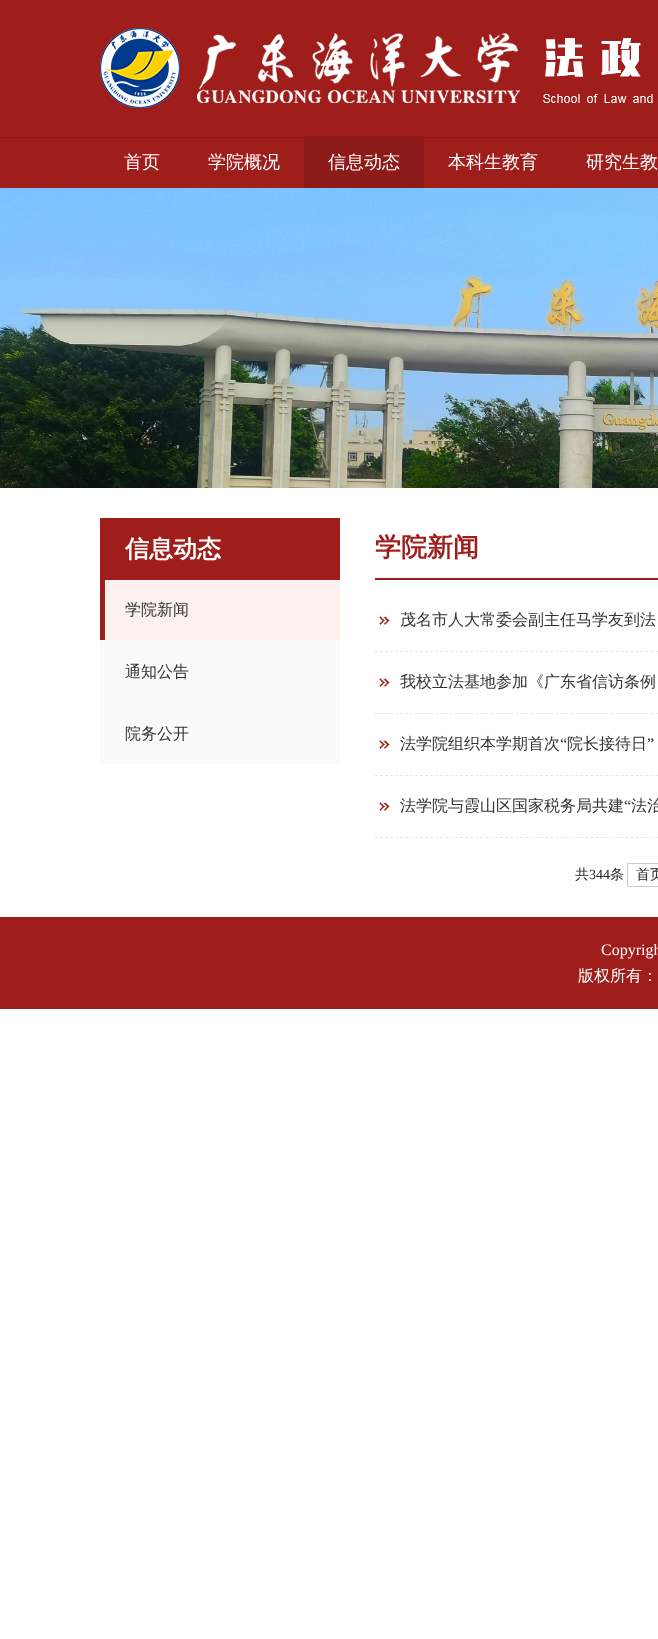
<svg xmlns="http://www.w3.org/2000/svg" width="658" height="1639">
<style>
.a{font:500 18px WenQuanYi Zen Hei;fill:#fff}
.b{font:bold 24px WenQuanYi Zen Hei;fill:#fff}
.c{font:500 16px WenQuanYi Zen Hei;fill:#333}
.d{font:bold 26px WenQuanYi Zen Hei;fill:#9f1e1b}
.e{font:16px Liberation Serif;fill:#333}
.f{font:500 14px WenQuanYi Zen Hei;fill:#222}
.g{font:14px Liberation Serif;fill:#222}
.h{font:16px Liberation Serif;fill:#fff}
.i{font:500 16px WenQuanYi Zen Hei;fill:#fff}
</style>
<rect width="100%" height="100%" fill="#fff"/>
<path fill="#9f1d1b" d="M0 0h658v136H0z"/>
<image href="1.png" x="100" y="28" width="553" height="80"/>
<path fill="#9f1e1b" d="M0 138h658v50H0z"/>
<image href="2.png" x="0" y="136" width="658" height="2"/>
<path fill="#8c1b19" d="M304 136h120v52H304z"/>
<image href="3.png" x="0" y="188" width="658" height="300"/>
<path fill="#9f1e1b" d="M100 518h240v62H100z"/>
<path fill="#fafafa" d="M100 640h240v124H100z"/>
<path fill="#fcf1ef" d="M105 580h235v60H105z"/>
<path fill="#9f1e1b" d="M100 580h5v60H100z"/>
<path fill="#9f1e1b" d="M375 578h283v2H375z"/>
<image href="4.png" x="379" y="616" width="11" height="9"/>
<path fill="none" stroke="#e6e6eb" stroke-dasharray="3 2.01" d="M375 651.5h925"/>
<image href="4.png" x="379" y="678" width="11" height="9"/>
<path fill="none" stroke="#e6e6eb" stroke-dasharray="3 2.01" d="M375 713.5h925"/>
<image href="4.png" x="379" y="740" width="11" height="9"/>
<path fill="none" stroke="#e6e6eb" stroke-dasharray="3 2.01" d="M375 775.5h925"/>
<image href="4.png" x="379" y="802" width="11" height="9"/>
<path fill="none" stroke="#e6e6eb" stroke-dasharray="3 2.01" d="M375 837.5h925"/>
<path fill="none" stroke="#ccc" d="M627.5 863.5h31v23H627.5z"/>
<path fill="#9f1e1b" d="M0 917h658v92H0z"/>
<text class="a" x="124" y="168">首页</text>
<text class="a" x="208" y="168">学院概况</text>
<text class="a" x="328" y="168">信息动态</text>
<text class="a" x="448" y="168">本科生教育</text>
<text class="a" x="586" y="168">研究生教</text>
<text class="b" x="125" y="557">信息动态</text>
<text class="c" x="125" y="615">学院新闻</text>
<text class="c" x="125" y="677">通知公告</text>
<text class="c" x="125" y="739">院务公开</text>
<text class="d" x="375" y="556">学院新闻</text>
<text class="c" x="400" y="625">茂名市人大常委会副主任马学友到法</text>
<text class="c" x="400" y="687">我校立法基地参加《广东省信访条例</text>
<text class="c" x="400" y="749">法学院组织本学期首次</text>
<text class="e" x="560" y="749">“</text>
<text class="c" x="567" y="749">院长接待日</text>
<text class="e" x="647" y="749">”</text>
<text class="c" x="400" y="811">法学院与霞山区国家税务局共建</text>
<text class="e" x="624" y="811">“</text>
<text class="c" x="631" y="811">法治</text>
<text class="f" x="575" y="879">共</text>
<text class="g" x="589" y="879">344</text>
<text class="f" x="610" y="879">条</text>
<text class="f" x="636" y="879">首页</text>
<text class="h" x="601" y="955">Copyrigh</text>
<text class="i" x="578" y="981" word-spacing="-1">版权所有：</text>
</svg>
